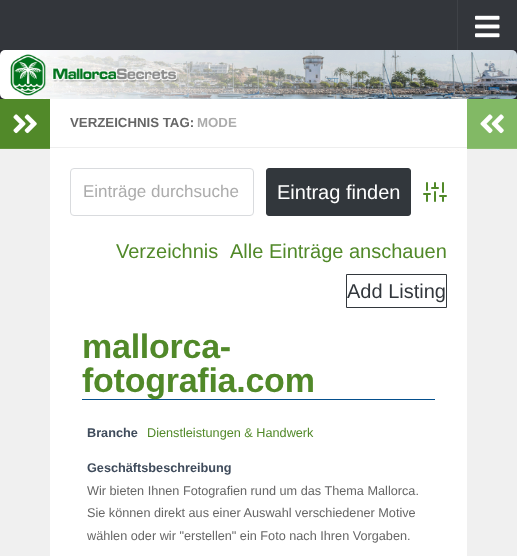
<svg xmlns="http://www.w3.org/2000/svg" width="517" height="556">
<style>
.a{font:bold 13.25px Liberation Sans;fill:#666}
.b{font:bold 13.25px Liberation Sans;fill:#acacac}
.c{font:17px Liberation Sans;fill:#acacac}
.d{font:20px Liberation Sans;fill:#fff}
.e{font:20px Liberation Sans;fill:#518929}
.f{font:20px Liberation Sans;fill:#32373c}
.g{font:bold 34px Liberation Sans;letter-spacing:-0.25px;fill:#518929}
.h{font:bold 12.7px Liberation Sans;fill:#3f4b5b}
.i{font:12.7px Liberation Sans;fill:#518929}
.j{font:12.7px Liberation Sans;fill:#666}
</style>
<rect width="100%" height="100%" fill="#fff"/>
<path fill="#23232b" d="M0 50h517v49H0z"/>
<path fill="#33363b" d="M0 0h517v50H0z"/>
<path fill="#3f4247" d="M457 0h1v50H457z"/>
<image href="1.png" x="475" y="15" width="25" height="23"/>
<image href="2.png" x="0" y="50" width="517" height="49"/>
<path fill="#f0f0f0" d="M0 149h50v407H0z"/>
<path fill="#518929" d="M0 99h50v49H0z"/>
<path fill="#62953e" d="M0 148h50v1H0z"/>
<image href="3.png" x="13" y="114" width="24" height="20"/>
<path fill="#eee" d="M50 147h417v1H50z"/>
<rect fill="none" stroke="#d9dbde" x="70.5" y="168.5" width="183" height="47" rx="3.5"/>
<rect fill="#32373c" stroke="#32373c" x="266.5" y="168.5" width="144" height="47" rx="2.5"/>
<image href="4.png" x="423" y="182" width="24" height="20"/>
<path fill="none" stroke="#32373c" d="M346.5 274.5h100v33H346.5z"/>
<path fill="#044f8d" d="M82 399h353v1H82z"/>
<path fill="#82b965" d="M467 99h50v49H467z"/>
<path fill="#8fc074" d="M467 148h50v1H467z"/>
<image href="5.png" x="480" y="114" width="24" height="20"/>
<path fill="#f0f0f0" d="M467 149h50v407H467z"/>
<text class="a" x="70" y="127">VERZEICHNIS TAG:</text>
<text class="b" x="197" y="127">MODE</text>
<text class="c" x="83" y="197">Einträge durchsuche</text>
<text class="d" x="277" y="199">Eintrag finden</text>
<text class="e" x="116" y="258">Verzeichnis</text>
<text class="e" x="230" y="258">Alle Einträge anschauen</text>
<text class="f" x="347" y="298">Add Listing</text>
<text class="g" x="82" y="358">mallorca-</text>
<text class="g" x="82" y="392">fotografia.com</text>
<text class="h" x="87" y="437">Branche</text>
<text class="i" x="147" y="437">Dienstleistungen &amp; Handwerk</text>
<text class="h" x="87" y="472">Geschäftsbeschreibung</text>
<text class="j" x="87" y="495">Wir bieten Ihnen Fotografien rund um das Thema Mallorca.</text>
<text class="j" x="87" y="517">Sie können direkt aus einer Auswahl verschiedener Motive</text>
<text class="j" x="87" y="540">wählen oder wir "erstellen" ein Foto nach Ihren Vorgaben.</text>
</svg>
